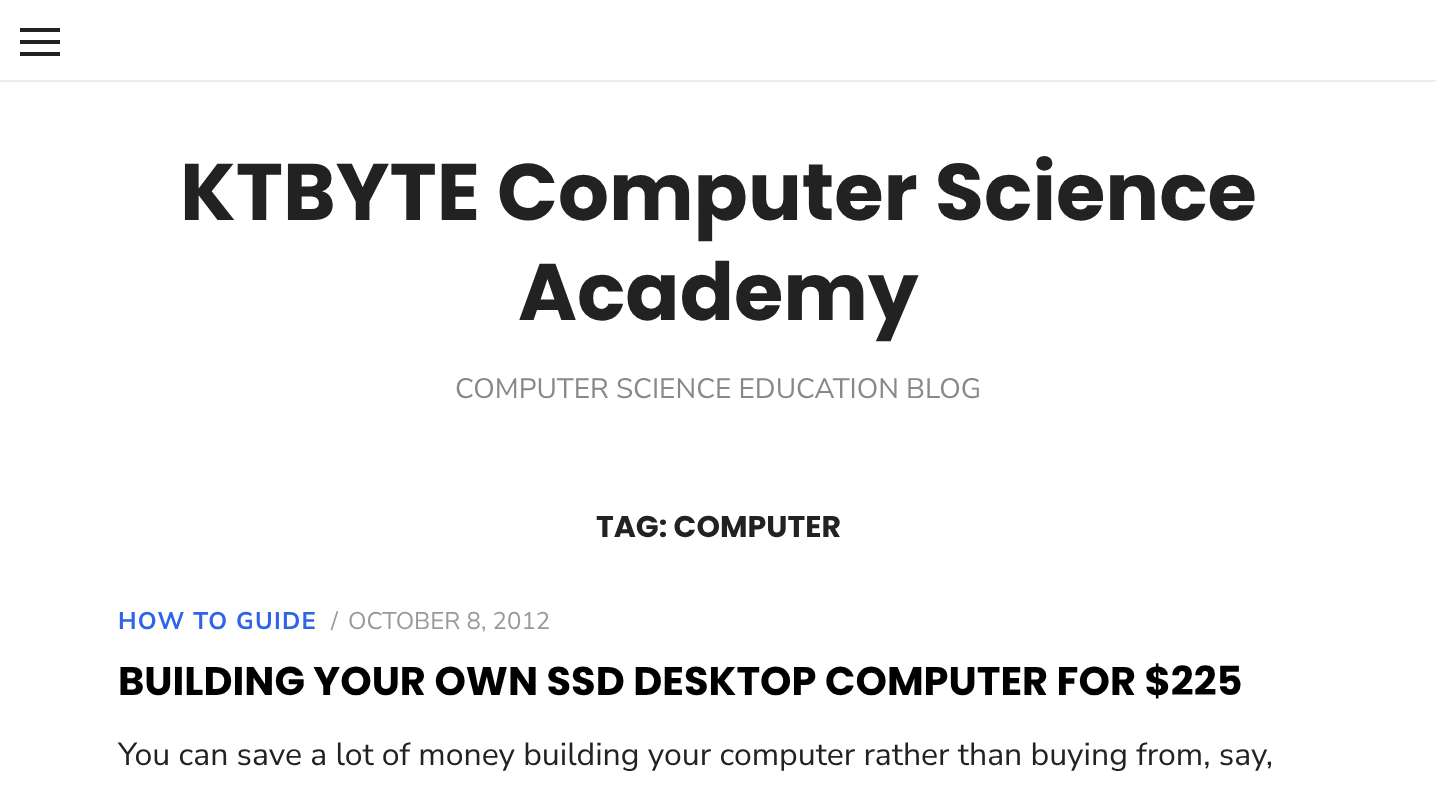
<svg xmlns="http://www.w3.org/2000/svg" width="1436" height="812">
<style>
.a{font:bold 80px Poppins;fill:#222}
.b{font:28px Nunito Sans;fill:#888}
.c{font:bold 30px Poppins;fill:#222}
.d{font:bold 24px Nunito Sans;letter-spacing:1.25px;fill:#2e64e6}
.e{font:24px Nunito Sans;fill:#999}
.f{font:bold 40px Poppins;fill:#000}
.g{font:32px Nunito Sans;fill:#222}
</style>
<rect width="100%" height="100%" fill="#fff"/>
<path fill="#ededed" d="M0 80h1436v2H0z"/>
<path fill="#222" d="M20 40h40v4H20z"/>
<path fill="#222" d="M20 28h40v4H20z"/>
<path fill="#222" d="M20 52h40v4H20z"/>
<text class="a" x="180" y="220">KTBYTE Computer Science</text>
<text class="a" x="518" y="320">Academy</text>
<text class="b" x="455" y="398">COMPUTER SCIENCE EDUCATION BLOG</text>
<text class="c" x="596" y="537">TAG: COMPUTER</text>
<text class="d" x="118" y="629">HOW TO GUIDE</text>
<text class="e" x="331" y="629">/</text>
<text class="e" x="348" y="629">OCTOBER 8, 2012</text>
<text class="f" x="118" y="695">BUILDING YOUR OWN SSD DESKTOP COMPUTER FOR $225</text>
<text class="g" x="118" y="765">You can save a lot of money building your computer rather than buying from, say,</text>
</svg>
